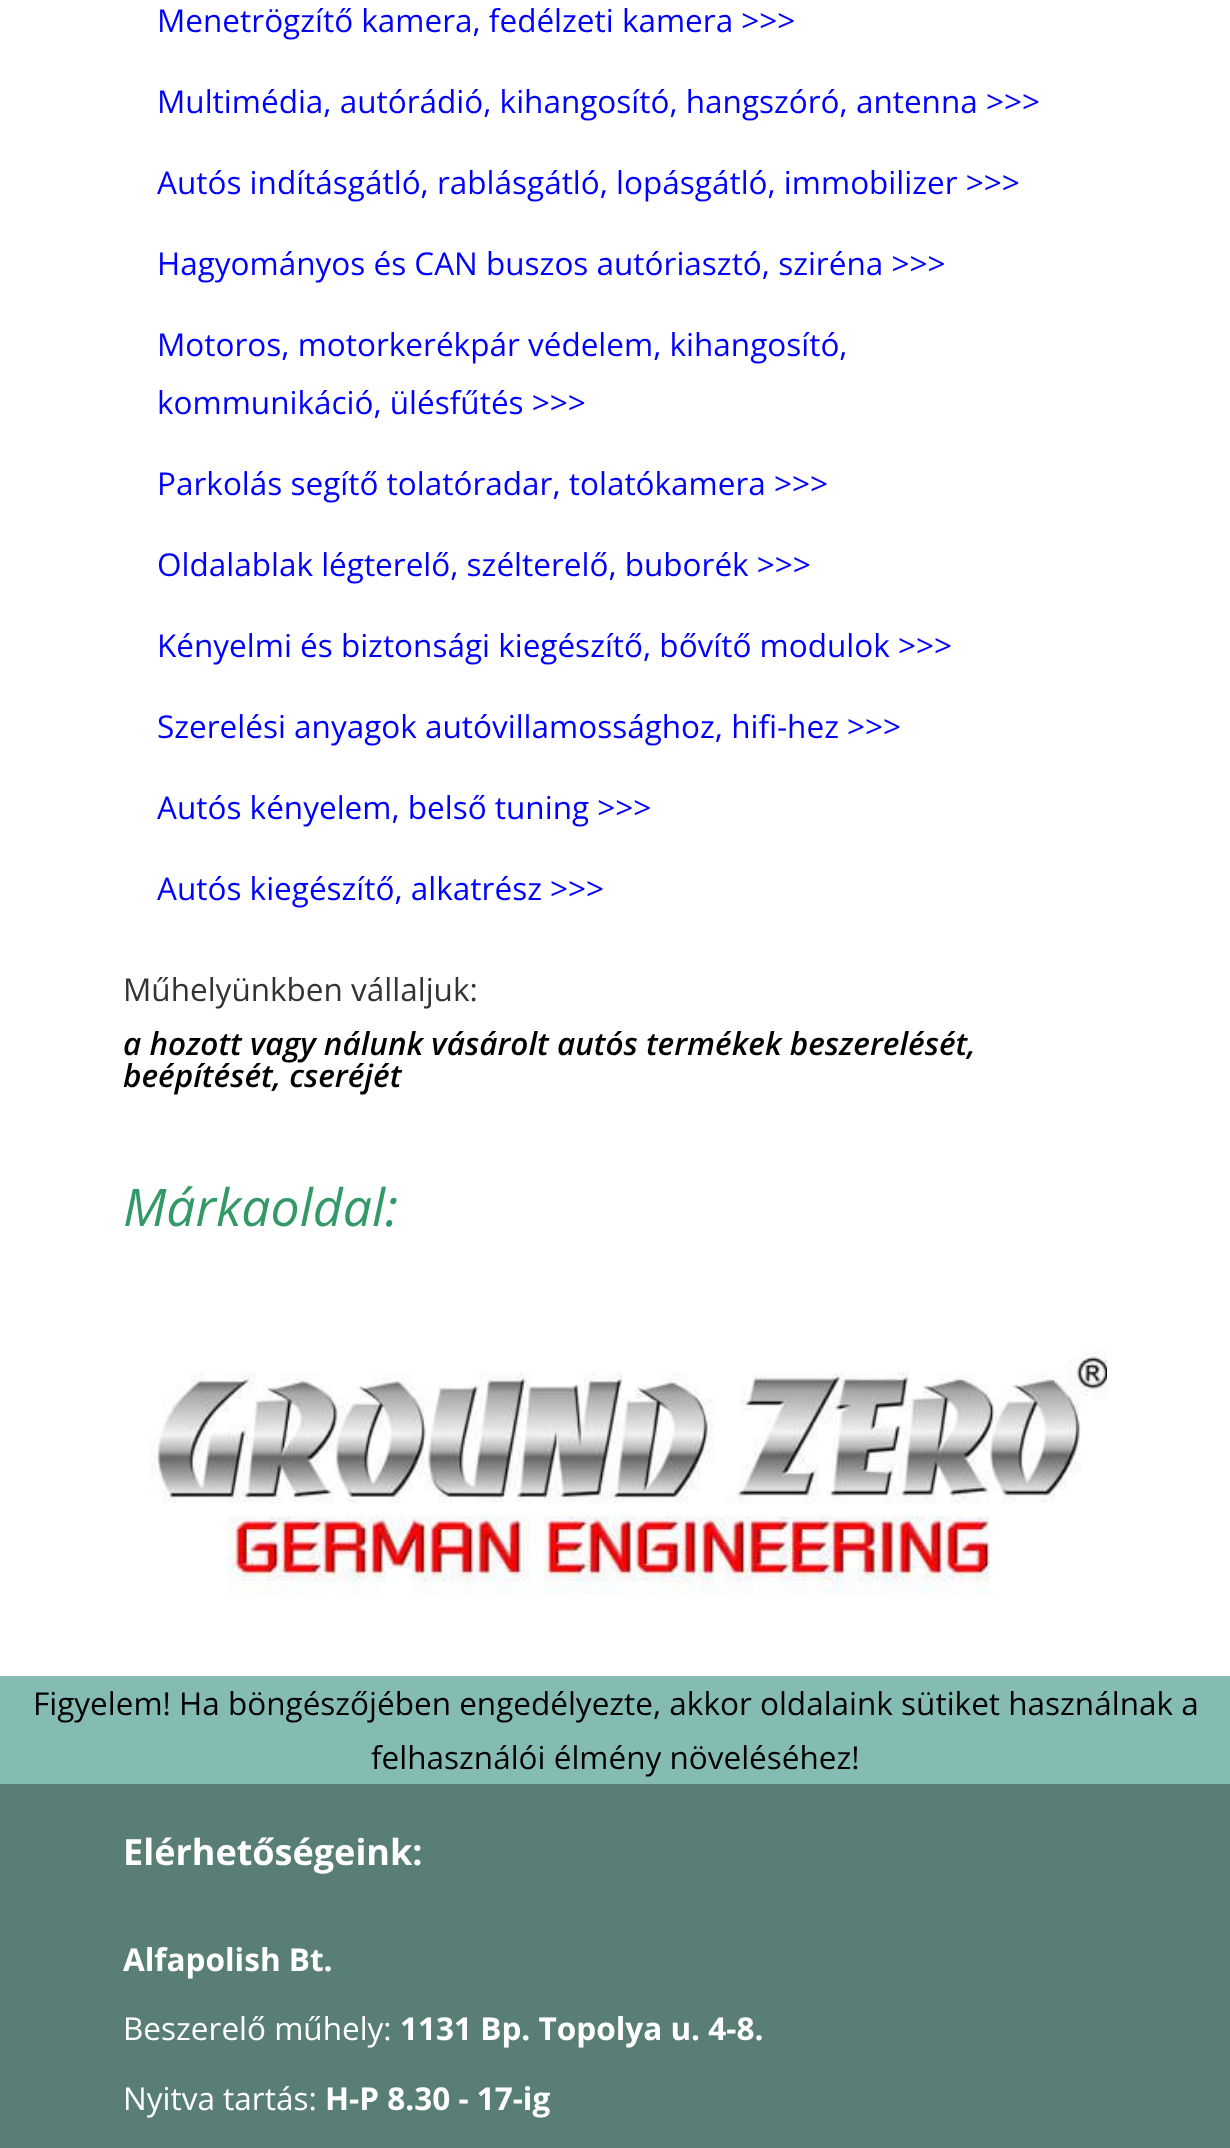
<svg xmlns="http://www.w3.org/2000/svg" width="1230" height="2148">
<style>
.a{font:31.5px Open Sans;fill:#00f}
.b{font:31.5px Open Sans;fill:#333}
.c{font:italic 600 31.5px Open Sans;fill:#000}
.d{font:italic 51.75px Open Sans;fill:#396}
.e{font:31.5px Open Sans;fill:#000}
.f{font:bold 36px Open Sans;fill:#fff}
.g{font:bold 31.5px Open Sans;fill:#fff}
.h{font:31.5px Open Sans;fill:#fff}
</style>
<rect width="100%" height="100%" fill="#fff"/>
<image href="1.png" x="150" y="1346" width="957" height="249"/>
<path fill="#587e76" d="M0 1784h1230v364H0z"/>
<path fill="#84bcb3" d="M0 1676h1230v108H0z"/>
<text class="a" x="157" y="32">Menetrögzítő kamera, fedélzeti kamera &gt;&gt;&gt;</text>
<text class="a" x="157" y="113">Multimédia, autórádió, kihangosító, hangszóró, antenna &gt;&gt;&gt;</text>
<text class="a" x="157" y="194">Autós indításgátló, rablásgátló, lopásgátló, immobilizer &gt;&gt;&gt;</text>
<text class="a" x="157" y="275">Hagyományos és CAN buszos autóriasztó, sziréna &gt;&gt;&gt;</text>
<text class="a" x="157" y="356">Motoros, motorkerékpár védelem, kihangosító,</text>
<text class="a" x="157" y="414">kommunikáció, ülésfűtés &gt;&gt;&gt;</text>
<text class="a" x="157" y="495">Parkolás segítő tolatóradar, tolatókamera &gt;&gt;&gt;</text>
<text class="a" x="157" y="576">Oldalablak légterelő, szélterelő, buborék &gt;&gt;&gt;</text>
<text class="a" x="157" y="657">Kényelmi és biztonsági kiegészítő, bővítő modulok &gt;&gt;&gt;</text>
<text class="a" x="157" y="738">Szerelési anyagok autóvillamossághoz, hifi-hez &gt;&gt;&gt;</text>
<text class="a" x="157" y="819">Autós kényelem, belső tuning &gt;&gt;&gt;</text>
<text class="a" x="157" y="900">Autós kiegészítő, alkatrész &gt;&gt;&gt;</text>
<text class="b" x="123" y="1001">Műhelyünkben vállaljuk:</text>
<text class="c" x="123" y="1055">a hozott vagy nálunk vásárolt autós termékek beszerelését,</text>
<text class="c" x="123" y="1087">beépítését, cseréjét</text>
<text class="d" x="123" y="1226">Márkaoldal:</text>
<text class="e" x="33" y="1715">Figyelem! Ha böngészőjében engedélyezte, akkor oldalaink sütiket használnak a</text>
<text class="e" x="371" y="1769">felhasználói élmény növeléséhez!</text>
<text class="f" x="123" y="1865">Elérhetőségeink:</text>
<text class="g" x="123" y="1971">Alfapolish Bt.</text>
<text class="h" x="123" y="2040">Beszerelő műhely:</text>
<text class="g" x="400" y="2040">1131 Bp. Topolya u. 4-8.</text>
<text class="h" x="123" y="2110">Nyitva tartás:</text>
<text class="g" x="325" y="2110">H-P 8.30 - 17-ig</text>
</svg>
